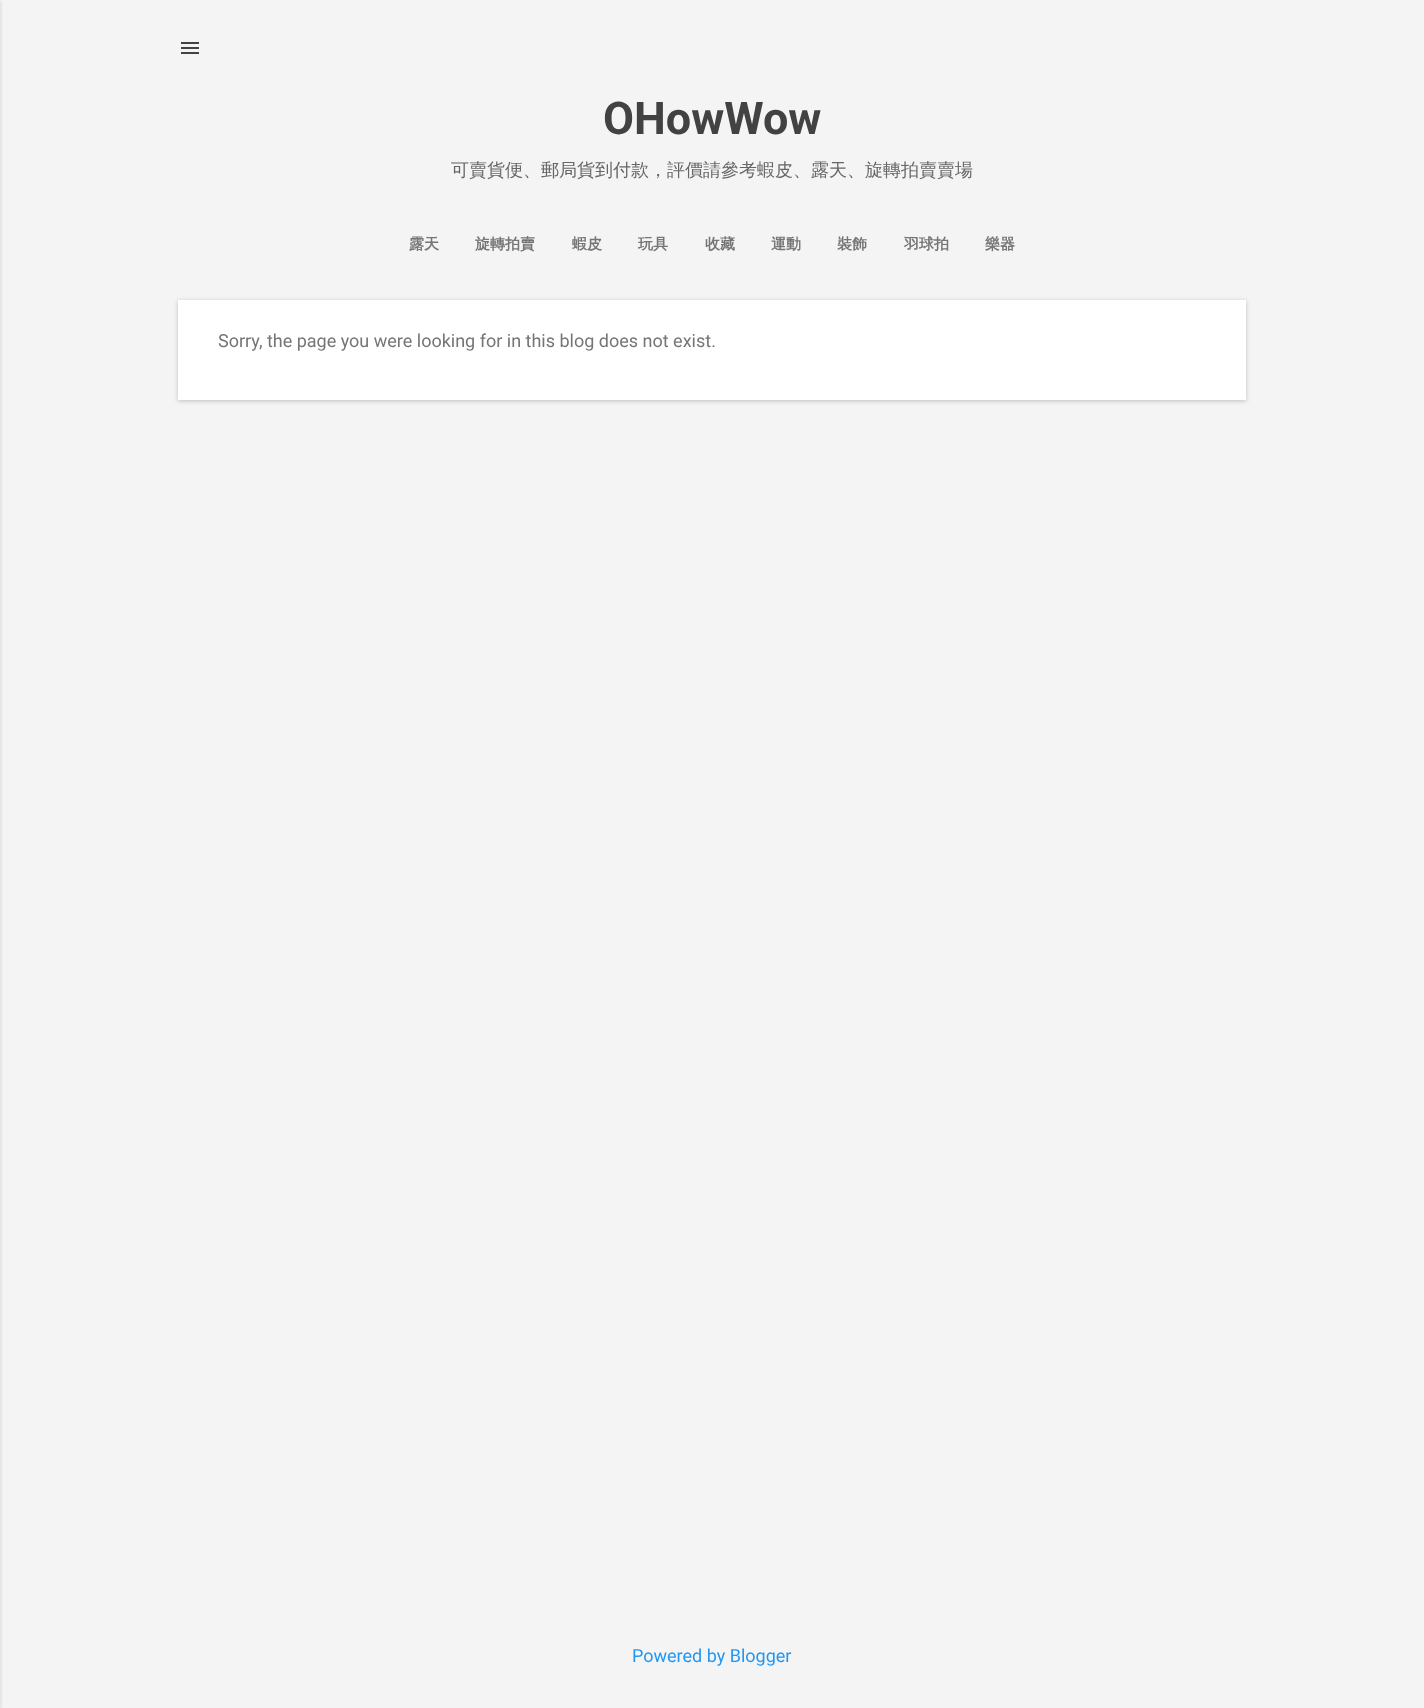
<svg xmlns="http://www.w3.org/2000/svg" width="1424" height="1708">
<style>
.a{font:bold 45px Roboto;fill:#424242}
.b{font:500 18px WenQuanYi Zen Hei;fill:#666}
.c{font:bold 15px WenQuanYi Zen Hei;fill:#757575}
.d{font:18px Roboto;fill:#757575}
.e{font:18px Roboto;fill:#2196f3}
</style>
<rect width="100%" height="100%" fill="#f4f4f4"/>
<path fill="#0000001a" filter="blur(1.5px)" d="M-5 1h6v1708H-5z"/>
<image href="1.png" x="181" y="42" width="18" height="12"/>
<path fill="#3c40434d" filter="blur(2px)" d="M178 301h1068v100H178z"/>
<path fill="#fff" d="M178 300h1068v100H178z"/>
<text class="a" x="603" y="134">OHowWow</text>
<text class="b" x="451" y="176">可賣貨便、郵局貨到付款，評價請參考蝦皮、露天、旋轉拍賣賣場</text>
<text class="c" x="409" y="249">露天</text>
<text class="c" x="475" y="249">旋轉拍賣</text>
<text class="c" x="572" y="249">蝦皮</text>
<text class="c" x="638" y="249">玩具</text>
<text class="c" x="705" y="249">收藏</text>
<text class="c" x="771" y="249">運動</text>
<text class="c" x="837" y="249">裝飾</text>
<text class="c" x="904" y="249">羽球拍</text>
<text class="c" x="985" y="249">樂器</text>
<text class="d" x="218" y="347">Sorry, the page you were looking for in this blog does not exist.</text>
<text class="e" x="632" y="1662">Powered by Blogger</text>
</svg>
